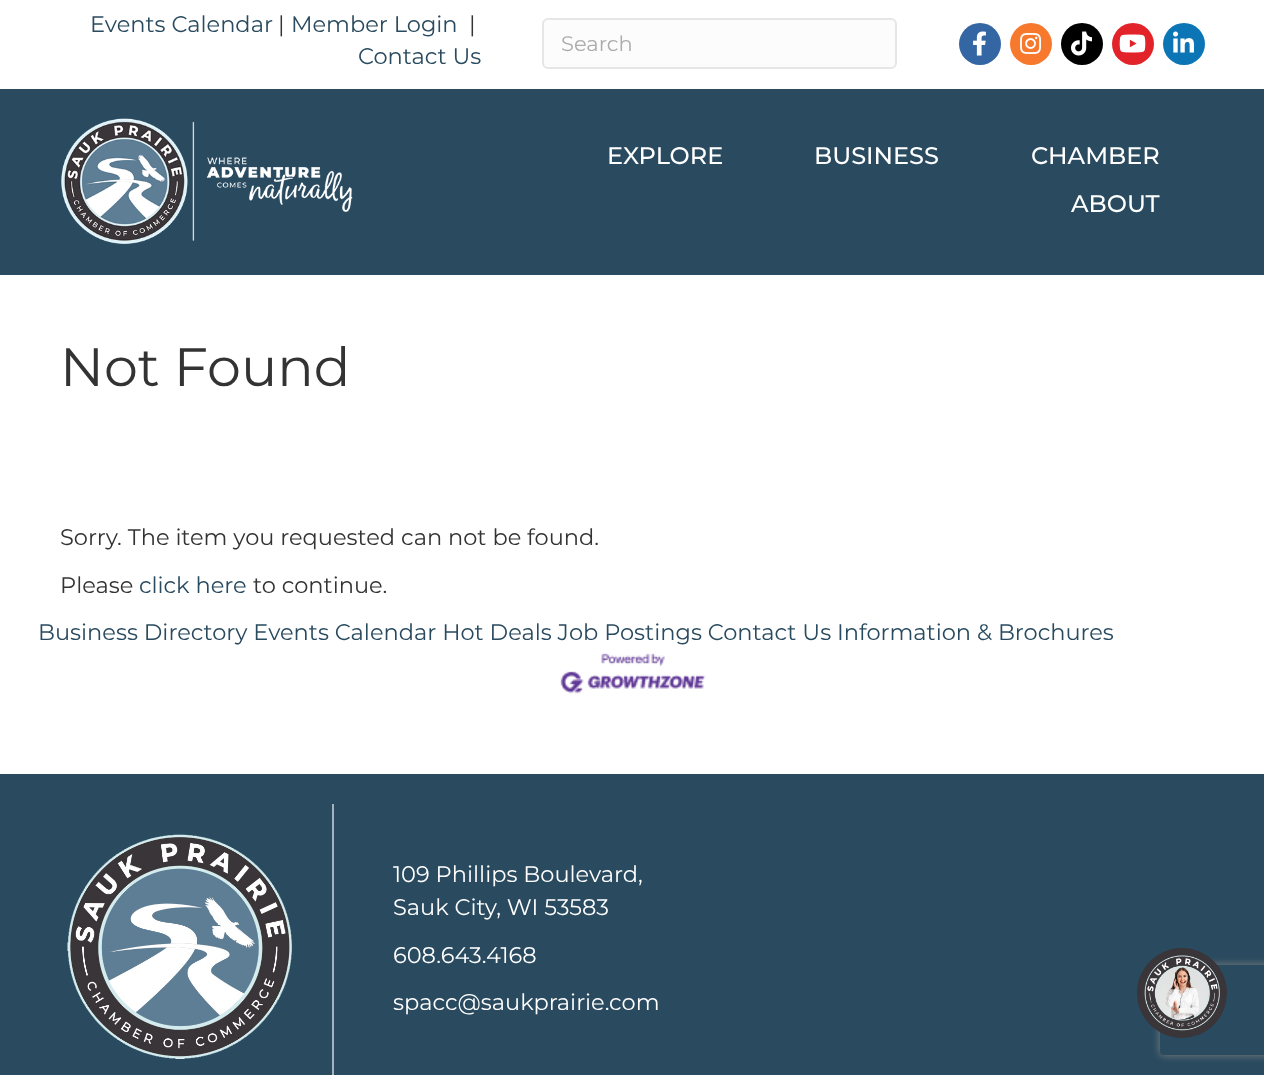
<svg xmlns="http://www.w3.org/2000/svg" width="1264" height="1075">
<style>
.a{font:22.5px Montserrat;fill:#294a5f}
.b{font:22.5px Montserrat;fill:#333}
.c{font:21px Montserrat;fill:#acacac}
.d{font:500 24px Montserrat;fill:#fff}
.e{font:54px Montserrat;fill:#333}
.f{font:22.5px Montserrat;fill:#fff}
</style>
<defs>
<clipPath id="clip1"><path d="M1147 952h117v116h-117zm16 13h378c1.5 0 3 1.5 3 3v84c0 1.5-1.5 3-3 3h-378c-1.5 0-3-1.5-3-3v-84c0-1.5 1.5-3 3-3z" clip-rule="evenodd"/></clipPath>
</defs>
<rect width="100%" height="100%" fill="#fff"/>
<rect fill="#fcfcfc" stroke="#e6e6e6" stroke-width="2" x="543" y="19" width="353" height="49" rx="5"/>
<circle fill="#3566a4" cx="980" cy="44" r="21"/>
<image href="1.png" x="973" y="31" width="13" height="25"/>
<circle fill="#f7792e" cx="1031" cy="44" r="21"/>
<image href="2.png" x="1020" y="33" width="22" height="21"/>
<circle fill="#000" cx="1082" cy="44" r="21"/>
<image href="3.png" x="1071" y="31" width="21" height="25"/>
<circle fill="#e22329" cx="1133" cy="44" r="21"/>
<image href="4.png" x="1119" y="34" width="27" height="19"/>
<circle fill="#0c75b5" cx="1184" cy="44" r="21"/>
<image href="5.png" x="1173" y="31" width="21" height="22"/>
<path fill="#294a5f" d="M0 89h1264v186H0z"/>
<image href="6.png" x="61" y="118" width="292" height="126"/>
<image href="7.png" x="560" y="653" width="146" height="41"/>
<path fill="#294a5f" d="M0 774h1264v301H0z"/>
<image href="8.png" x="67" y="834" width="225" height="225"/>
<path fill="#a4b1bf" d="M332 804h2v271H332z"/>
<g clip-path="url(#clip1)">
<rect fill="#808080" filter="blur(4px)" x="1160" y="965" width="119" height="90" rx="3"/>
</g>
<circle fill="#3a3539" cx="1182" cy="993" r="45"/>
<image href="9.png" x="1144" y="955" width="76" height="76"/>
<text class="a" x="90" y="32">Events Calendar</text>
<text class="b" x="278" y="32">|</text>
<text class="a" x="291" y="32">Member Login</text>
<text class="b" x="469" y="32">|</text>
<text class="a" x="358" y="64">Contact Us</text>
<text class="c" x="561" y="51">Search</text>
<text class="d" x="607" y="164">EXPLORE</text>
<text class="d" x="814" y="164">BUSINESS</text>
<text class="d" x="1031" y="164">CHAMBER</text>
<text class="d" x="1071" y="212">ABOUT</text>
<text class="e" x="60" y="386">Not Found</text>
<text class="b" x="60" y="545">Sorry. The item you requested can not be found.</text>
<text class="b" x="60" y="593">Please</text>
<text class="a" x="139" y="593">click here</text>
<text class="b" x="253" y="593">to continue.</text>
<text class="a" x="38" y="640">Business Directory Events Calendar Hot Deals Job Postings Contact Us Information &amp; Brochures</text>
<text class="f" x="393" y="882">109 Phillips Boulevard,</text>
<text class="f" x="393" y="915">Sauk City, WI 53583</text>
<text class="f" x="393" y="963">608.643.4168</text>
<text class="f" x="393" y="1010">spacc@saukprairie.com</text>
</svg>
